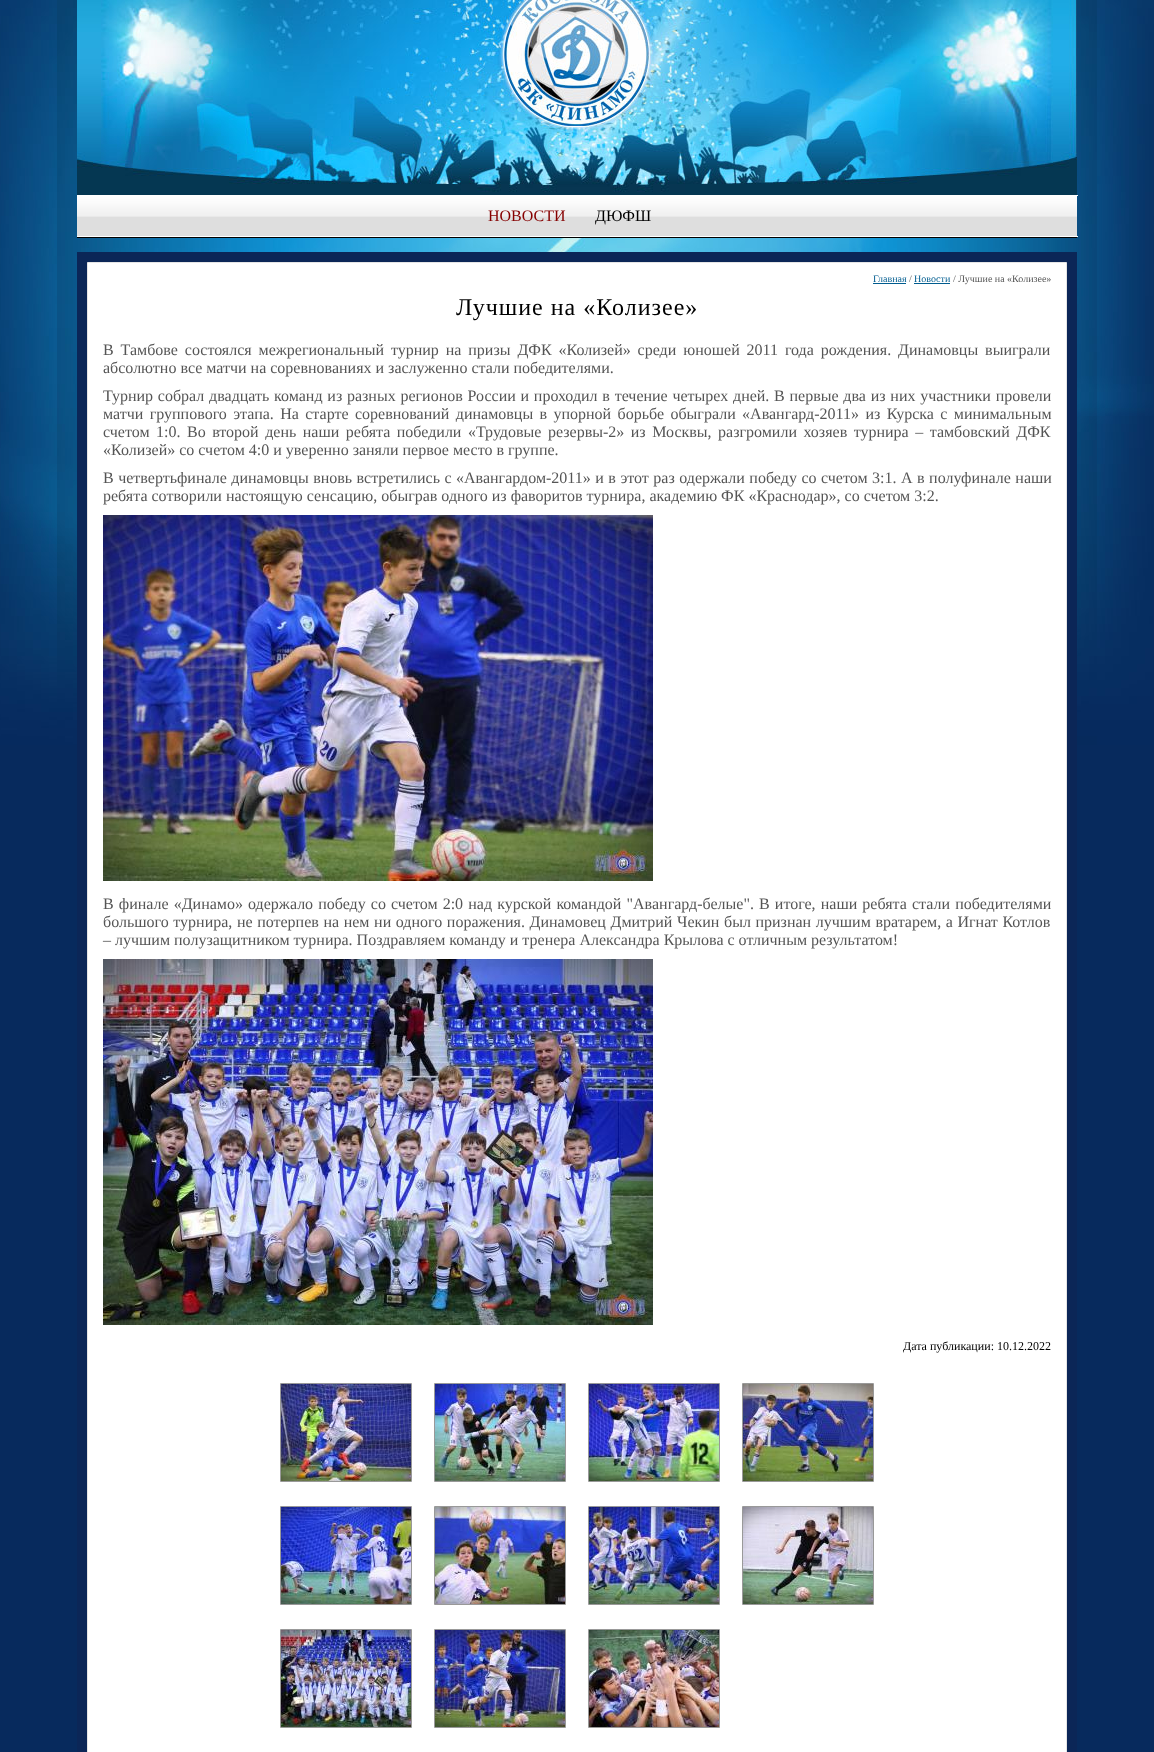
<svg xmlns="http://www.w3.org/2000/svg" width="1154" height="1752">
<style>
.a{font:16px Liberation Serif;fill:#860000}
.b{font:16px Liberation Serif;fill:#000}
.c{font:10px Liberation Serif;fill:#005c8f}
.d{font:10px Liberation Serif;fill:#555}
.e{font:24px Liberation Serif;letter-spacing:1px;fill:#000}
.f{font:16px Liberation Serif;fill:#555}
.g{font:12px Liberation Serif;fill:#000}
</style>
<rect width="100%" height="100%" fill="#072a5d"/>
<image href="1.png" x="0" y="0" width="1154" height="745"/>
<image href="2.png" x="77" y="0" width="1000" height="195"/>
<image href="3.png" x="77" y="196" width="1000" height="40"/>
<path fill="#fff" d="M77 195h1001v1H77z"/>
<path fill="#fff" d="M77 236h1001v1H77z"/>
<path fill="#000" d="M77 237h1000v1H77z"/>
<path fill="#0b2657" d="M77 252h1000v1500H77z"/>
<path fill="#fff" stroke="#e5e5e5" d="M87.5 262.5h979v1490H87.5z"/>
<path fill="#005c8f" d="M873 283h33v1H873z"/>
<path fill="#005c8f" d="M914 283h36v1H914z"/>
<image href="4.png" x="103" y="515" width="550" height="366"/>
<image href="5.png" x="103" y="959" width="550" height="366"/>
<path fill="none" stroke="#999" d="M280.5 1383.5h131v98H280.5z"/>
<image href="6.png" x="281" y="1384" width="130" height="97"/>
<path fill="none" stroke="#999" d="M434.5 1383.5h131v98H434.5z"/>
<image href="7.png" x="435" y="1384" width="130" height="97"/>
<path fill="none" stroke="#999" d="M588.5 1383.5h131v98H588.5z"/>
<image href="8.png" x="589" y="1384" width="130" height="97"/>
<path fill="none" stroke="#999" d="M742.5 1383.5h131v98H742.5z"/>
<image href="9.png" x="743" y="1384" width="130" height="97"/>
<path fill="none" stroke="#999" d="M280.5 1506.5h131v98H280.5z"/>
<image href="10.png" x="281" y="1507" width="130" height="97"/>
<path fill="none" stroke="#999" d="M434.5 1506.5h131v98H434.5z"/>
<image href="11.png" x="435" y="1507" width="130" height="97"/>
<path fill="none" stroke="#999" d="M588.5 1506.5h131v98H588.5z"/>
<image href="12.png" x="589" y="1507" width="130" height="97"/>
<path fill="none" stroke="#999" d="M742.5 1506.5h131v98H742.5z"/>
<image href="13.png" x="743" y="1507" width="130" height="97"/>
<path fill="none" stroke="#999" d="M280.5 1629.5h131v98H280.5z"/>
<image href="14.png" x="281" y="1630" width="130" height="97"/>
<path fill="none" stroke="#999" d="M434.5 1629.5h131v98H434.5z"/>
<image href="15.png" x="435" y="1630" width="130" height="97"/>
<path fill="none" stroke="#999" d="M588.5 1629.5h131v98H588.5z"/>
<image href="16.png" x="589" y="1630" width="130" height="97"/>
<text class="a" x="488" y="221">НОВОСТИ</text>
<text class="b" x="595" y="221">ДЮФШ</text>
<text class="c" x="873" y="282">Главная</text>
<text class="d" x="909" y="282">/</text>
<text class="c" x="914" y="282">Новости</text>
<text class="d" x="953" y="282">/ Лучшие на «Колизее»</text>
<text class="e" x="456" y="315">Лучшие на «Колизее»</text>
<text class="f" x="103" y="355" word-spacing="2.9">В Тамбове состоялся межрегиональный турнир на призы ДФК «Колизей» среди юношей 2011 года рождения. Динамовцы выиграли</text>
<text class="f" x="103" y="373">абсолютно все матчи на соревнованиях и заслуженно стали победителями.</text>
<text class="f" x="103" y="401" word-spacing="0.75">Турнир собрал двадцать команд из разных регионов России и проходил в течение четырех дней. В первые два из них участники провели</text>
<text class="f" x="103" y="419" word-spacing="2.4">матчи группового этапа. На старте соревнований динамовцы в упорной борьбе обыграли «Авангард-2011» из Курска с минимальным</text>
<text class="f" x="103" y="437" word-spacing="2.5">счетом 1:0. Во второй день наши ребята победили «Трудовые резервы-2» из Москвы, разгромили хозяев турнира – тамбовский ДФК</text>
<text class="f" x="103" y="455">«Колизей» со счетом 4:0 и уверенно заняли первое место в группе.</text>
<text class="f" x="103" y="483" word-spacing="0.5">В четвертьфинале динамовцы вновь встретились с «Авангардом-2011» и в этот раз одержали победу со счетом 3:1. А в полуфинале наши</text>
<text class="f" x="103" y="501">ребята сотворили настоящую сенсацию, обыграв одного из фаворитов турнира, академию ФК «Краснодар», со счетом 3:2.</text>
<text class="f" x="103" y="909" word-spacing="1.1">В финале «Динамо» одержало победу со счетом 2:0 над курской командой "Авангард-белые". В итоге, наши ребята стали победителями</text>
<text class="f" x="103" y="927" word-spacing="0.6">большого турнира, не потерпев на нем ни одного поражения. Динамовец Дмитрий Чекин был признан лучшим вратарем, а Игнат Котлов</text>
<text class="f" x="103" y="945">– лучшим полузащитником турнира. Поздравляем команду и тренера Александра Крылова с отличным результатом!</text>
<text class="g" x="903" y="1350">Дата публикации: 10.12.2022</text>
</svg>
